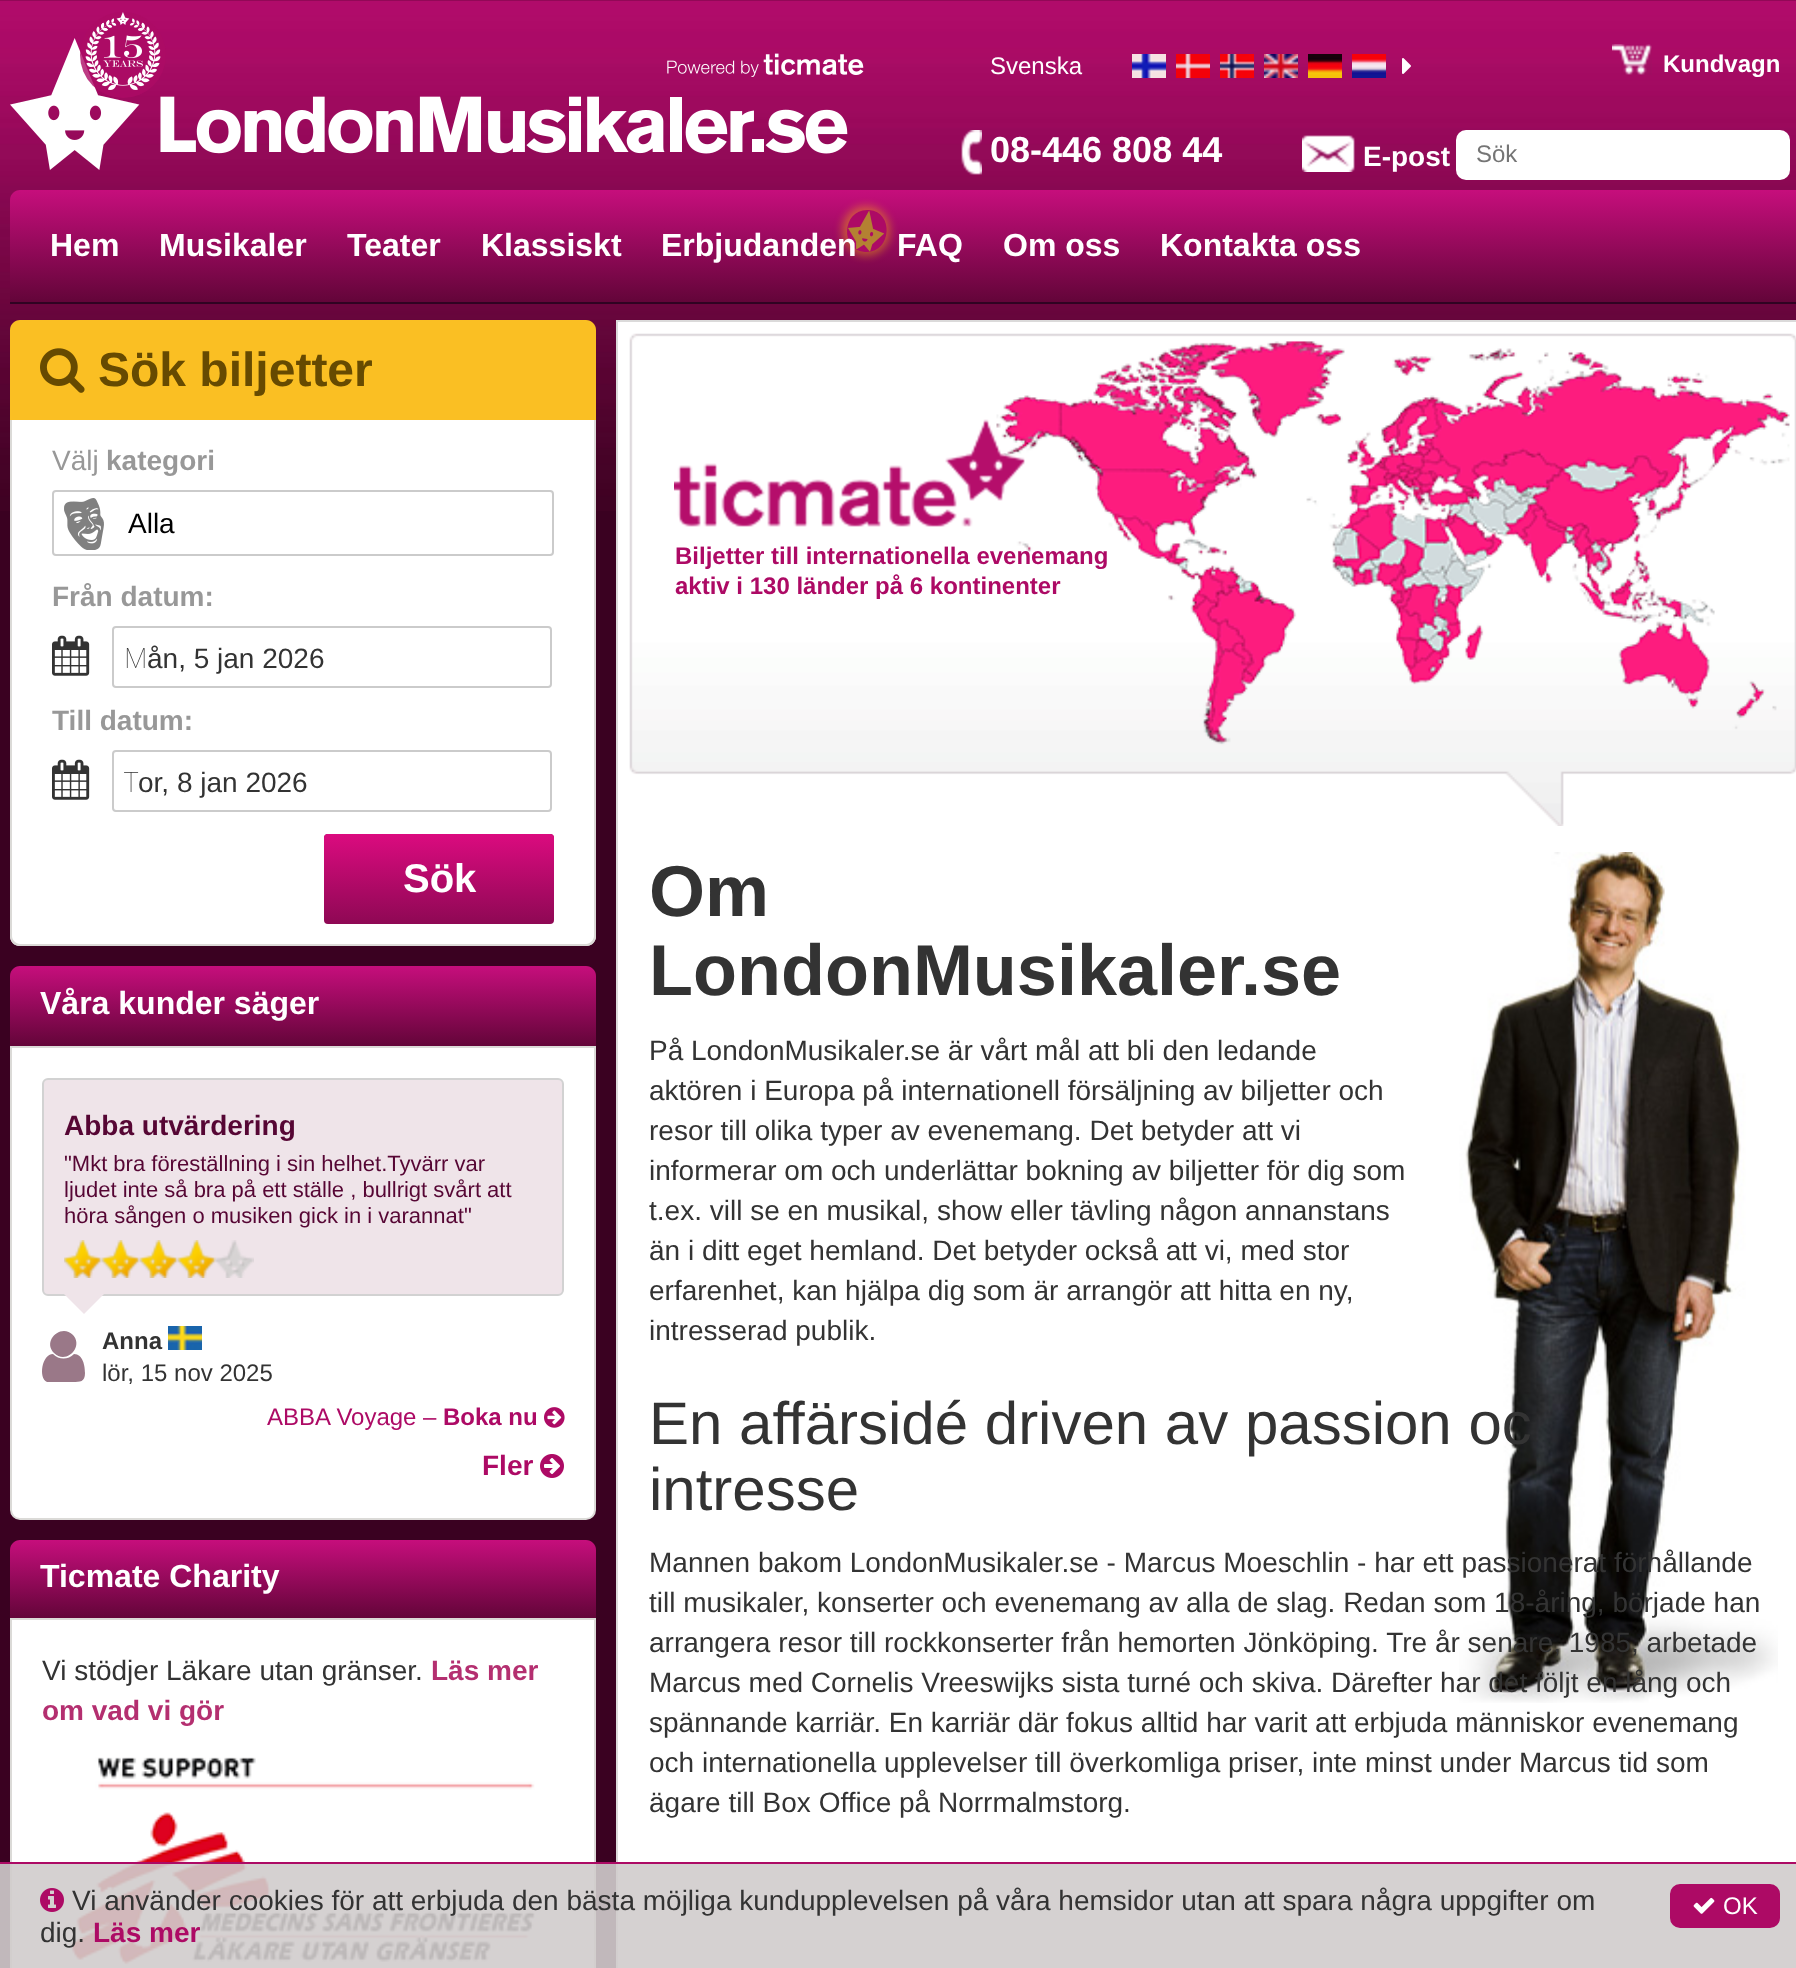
<svg xmlns="http://www.w3.org/2000/svg" width="1796" height="1968">
<style>
.a{font:bold 24px Liberation Sans;fill:#fff}
.b{font:bold 36px Liberation Sans;fill:#fff}
.c{font:bold 28px Liberation Sans;fill:#fff}
.d{font:24px Liberation Sans;fill:#fff}
.e{font:24px Liberation Sans;fill:#757575}
.f{font:bold 32px Liberation Sans;fill:#fff}
.g{font:bold 48px Liberation Sans;fill:#664a01}
.h{font:28px Liberation Sans;fill:#989898}
.i{font:bold 28px Liberation Sans;fill:#989898}
.j{font:28px Liberation Sans;fill:#000}
.k{font:100 28px Noto Sans;fill:#333}
.l{font:28px Liberation Sans;fill:#333}
.m{font:bold 40px Liberation Sans;fill:#fff}
.n{font:bold 28px Liberation Sans;fill:#560634}
.o{font:22px Liberation Sans;fill:#560634}
.p{font:bold 24px Liberation Sans;fill:#333}
.q{font:24px Liberation Sans;fill:#333}
.r{font:24px Liberation Sans;fill:#ad0a65}
.s{font:bold 24px Liberation Sans;fill:#ad0a65}
.t{font:bold 28px Liberation Sans;fill:#ad0a65}
.u{font:bold 28px Liberation Sans;fill:#b42f70}
.v{font:bold 72px Liberation Sans;fill:#333}
.w{font:60px Liberation Sans;fill:#333}
</style>
<defs>
<linearGradient id="g1" gradientUnits="userSpaceOnUse" x1="910" y1="190" x2="910" y2="302"><stop offset="0" stop-color="#c60e7c"/><stop offset="1" stop-color="#630539"/></linearGradient>
<linearGradient id="g2" gradientUnits="userSpaceOnUse" x1="439" y1="924" x2="439" y2="834"><stop offset="0" stop-color="#db0b7f" stop-opacity="0"/><stop offset="1" stop-color="#db0b7f"/></linearGradient>
<linearGradient id="g3" gradientUnits="userSpaceOnUse" x1="303" y1="966" x2="303" y2="1046"><stop offset="0" stop-color="#c60e7c"/><stop offset="1" stop-color="#630539"/></linearGradient>
<linearGradient id="g4" gradientUnits="userSpaceOnUse" x1="303" y1="1540" x2="303" y2="1618"><stop offset="0" stop-color="#c60e7c"/><stop offset="1" stop-color="#630539"/></linearGradient>
</defs>
<rect width="100%" height="100%" fill="#3a0121"/>
<image href="1.png" x="0" y="0" width="1796" height="511"/>
<image href="3.png" x="10" y="38" width="838" height="132"/>
<circle fill="#ad0b65cc" cx="123" cy="55" r="43"/>
<image href="2.png" x="85" y="12" width="76" height="78"/>
<image href="4.png" x="667" y="53" width="197" height="24"/>
<image href="5.png" x="1612" y="44" width="40" height="31"/>
<image href="6.png" x="961" y="130" width="21" height="45"/>
<image href="7.png" x="1302" y="135" width="53" height="37"/>
<path fill="url(#g1)" d="M20 190h1776c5.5 0 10 4.5 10 10v102h-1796v-102c0-5.5 4.5-10 10-10z"/>
<path fill="#300322" d="M10 302h1786v2H10z"/>
<image href="8.png" x="1132" y="54" width="34" height="24"/>
<image href="9.png" x="1176" y="54" width="34" height="24"/>
<image href="10.png" x="1220" y="54" width="34" height="24"/>
<image href="11.png" x="1264" y="54" width="34" height="24"/>
<image href="12.png" x="1308" y="54" width="34" height="24"/>
<image href="13.png" x="1352" y="54" width="34" height="24"/>
<image href="14.png" x="1402" y="58" width="9" height="16"/>
<rect fill="#fff" x="1456" y="130" width="334" height="50" rx="10"/>
<rect fill="#ffc20066" filter="blur(4px)" x="842" y="206" width="48" height="50" rx="24"/>
<path fill="#ad0a65" d="M869 210c26 2 22 44-4 42c-26-2-23-44 4-42z"/>
<image href="15.png" x="848" y="210" width="37" height="42"/>
<path fill="#fabf23" d="M20 320h566c5.5 0 10 4.5 10 10v90h-586v-90c0-5.5 4.5-10 10-10z"/>
<image href="16.png" x="40" y="348" width="45" height="45"/>
<path fill="#fff" d="M10 420h586v516c0 5.5-4.5 10-10 10h-566c-5.5 0-10-4.5-10-10z"/>
<path fill="#dbdad7" fill-rule="evenodd" d="M10 420h586v516c0 6-4 10-10 10h-566c-6 0-10-4-10-10zm2 0h582v516c0 4-4 8-8 8h-566c-4 0-8-4-8-8z"/>
<rect fill="none" stroke="#cbcbcb" stroke-width="2" x="53" y="491" width="500" height="64" rx="3"/>
<image href="17.png" x="64" y="498" width="40" height="52"/>
<image href="18.png" x="52" y="635" width="38" height="41"/>
<rect fill="none" stroke="#cbcbcb" stroke-width="2" x="113" y="627" width="438" height="60" rx="3"/>
<image href="18.png" x="52" y="759" width="38" height="41"/>
<rect fill="none" stroke="#cbcbcb" stroke-width="2" x="113" y="751" width="438" height="60" rx="3"/>
<rect fill="#8e0854" x="324" y="834" width="230" height="90" rx="4"/>
<rect fill="url(#g2)" x="324" y="834" width="230" height="90" rx="4"/>
<path fill="url(#g3)" d="M20 966h566c5.5 0 10 4.5 10 10v70h-586v-70c0-5.5 4.5-10 10-10z"/>
<path fill="#fff" stroke="#dbdad7" stroke-width="2" d="M11 1047h584v463c0 5-4 9-9 9h-566c-5 0-9-4-9-9z"/>
<rect fill="#efe4e9" stroke="#d2d2d2" stroke-width="2" x="43" y="1079" width="520" height="216" rx="5"/>
<image href="19.png" x="64" y="1240" width="190" height="38"/>
<image href="20.png" x="64" y="1240" width="152" height="38"/>
<path fill="#efe4e9" d="M64 1294h40l-20 20z"/>
<path fill="#9a7888" d="M85 1373c0 9-5 9-12 9h-26c-9-4-5-28 6-28c6 6 15 6 21 0c9 0 11 12 11 19zm-12-38c11 12-7 30-19 18c-12-12 7-30 19-18z"/>
<image href="21.png" x="168" y="1326" width="34" height="24"/>
<image href="22.png" x="544" y="1407" width="21" height="21"/>
<image href="23.png" x="540" y="1454" width="24" height="24"/>
<path fill="url(#g4)" d="M20 1540h566c5.5 0 10 4.5 10 10v68h-586v-68c0-5.5 4.5-10 10-10z"/>
<path fill="#fff" stroke="#dbdad7" stroke-width="2" d="M11 1619h584v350H11z"/>
<image href="24.png" x="70" y="1757" width="466" height="208"/>
<path fill="#fff" stroke="#dbdada" stroke-width="2" d="M617 321h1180v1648H617z"/>
<image href="25.png" x="629" y="333" width="1167" height="493"/>
<image href="26.png" x="674" y="419" width="351" height="108"/>
<image href="27.png" x="1459" y="852" width="319" height="851"/>
<path fill="#d0cccce6" d="M0 1864h1796v104H0z"/>
<path fill="#ad0a65" d="M0 1862h1796v2H0z"/>
<image href="28.png" x="40" y="1888" width="24" height="24"/>
<rect fill="#ad0a65" stroke="#ad0a65" stroke-width="2" x="1671" y="1885" width="108" height="42" rx="9"/>
<image href="29.png" x="1693" y="1897" width="22" height="17"/>
<text class="a" x="1663" y="72">Kundvagn</text>
<text class="b" x="990" y="162">08-446 808 44</text>
<text class="c" x="1363" y="166">E-post</text>
<text class="d" x="990" y="74">Svenska</text>
<text class="e" x="1476" y="162">Sök</text>
<text class="f" x="50" y="256">Hem</text>
<text class="f" x="159" y="256">Musikaler</text>
<text class="f" x="347" y="256">Teater</text>
<text class="f" x="481" y="256">Klassiskt</text>
<text class="f" x="661" y="256">Erbjudanden</text>
<text class="f" x="897" y="256">FAQ</text>
<text class="f" x="1003" y="256">Om oss</text>
<text class="f" x="1160" y="256">Kontakta oss</text>
<text class="g" x="98" y="386">Sök biljetter</text>
<text class="h" x="52" y="470">Välj</text>
<text class="i" x="106" y="470">kategori</text>
<text class="j" x="128" y="533">Alla</text>
<text class="i" x="52" y="606">Från datum:</text>
<text class="k" x="124" y="668">M</text>
<text class="l" x="147" y="668">ån, 5 jan 2026</text>
<text class="i" x="52" y="730">Till datum:</text>
<text class="k" x="124" y="792">T</text>
<text class="l" x="138" y="792">or, 8 jan 2026</text>
<text class="m" x="403" y="892">Sök</text>
<text class="f" x="40" y="1014">Våra kunder säger</text>
<text class="n" x="64" y="1135">Abba utvärdering</text>
<text class="o" x="64" y="1171">"Mkt bra föreställning i sin helhet.Tyvärr var</text>
<text class="o" x="64" y="1197">ljudet inte så bra på ett ställe , bullrigt svårt att</text>
<text class="o" x="64" y="1223">höra sången o musiken gick in i varannat"</text>
<text class="p" x="102" y="1349">Anna</text>
<text class="q" x="102" y="1381">lör, 15 nov 2025</text>
<text class="r" x="267" y="1425">ABBA Voyage –</text>
<text class="s" x="443" y="1425">Boka nu</text>
<text class="t" x="482" y="1475">Fler</text>
<text class="f" x="40" y="1587">Ticmate Charity</text>
<text class="l" x="42" y="1680">Vi stödjer Läkare utan gränser.</text>
<text class="u" x="431" y="1680">Läs mer</text>
<text class="u" x="42" y="1720">om vad vi gör</text>
<text class="s" x="675" y="564">Biljetter till internationella evenemang</text>
<text class="s" x="675" y="594">aktiv i 130 länder på 6 kontinenter</text>
<text class="v" x="649" y="916">Om</text>
<text class="v" x="649" y="995">LondonMusikaler.se</text>
<text class="l" x="649" y="1060">På LondonMusikaler.se är vårt mål att bli den ledande</text>
<text class="l" x="649" y="1100">aktören i Europa på internationell försäljning av biljetter och</text>
<text class="l" x="649" y="1140">resor till olika typer av evenemang. Det betyder att vi</text>
<text class="l" x="649" y="1180">informerar om och underlättar bokning av biljetter för dig som</text>
<text class="l" x="649" y="1220">t.ex. vill se en musikal, show eller tävling någon annanstans</text>
<text class="l" x="649" y="1260">än i ditt eget hemland. Det betyder också att vi, med stor</text>
<text class="l" x="649" y="1300">erfarenhet, kan hjälpa dig som är arrangör att hitta en ny,</text>
<text class="l" x="649" y="1340">intresserad publik.</text>
<text class="w" x="649" y="1444">En affärsidé driven av passion oc</text>
<text class="w" x="649" y="1510">intresse</text>
<text class="l" x="649" y="1572">Mannen bakom LondonMusikaler.se - Marcus Moeschlin - har ett passionerat förhållande</text>
<text class="l" x="649" y="1612">till musikaler, konserter och evenemang av alla de slag. Redan som 18-åring, började han</text>
<text class="l" x="649" y="1652">arrangera resor till rockkonserter från hemorten Jönköping. Tre år senare, 1985, arbetade</text>
<text class="l" x="649" y="1692">Marcus med Cornelis Vreeswijks sista turné och skiva. Därefter har det följt en lång och</text>
<text class="l" x="649" y="1732">spännande karriär. En karriär där fokus alltid har varit att erbjuda människor evenemang</text>
<text class="l" x="649" y="1772">och internationella upplevelser till överkomliga priser, inte minst under Marcus tid som</text>
<text class="l" x="649" y="1812">ägare till Box Office på Norrmalmstorg.</text>
<text class="l" x="72" y="1910">Vi använder cookies för att erbjuda den bästa möjliga kundupplevelsen på våra hemsidor utan att spara några uppgifter om</text>
<text class="d" x="1723" y="1914">OK</text>
<text class="l" x="40" y="1942">dig.</text>
<text class="t" x="93" y="1942">Läs mer</text>
</svg>
